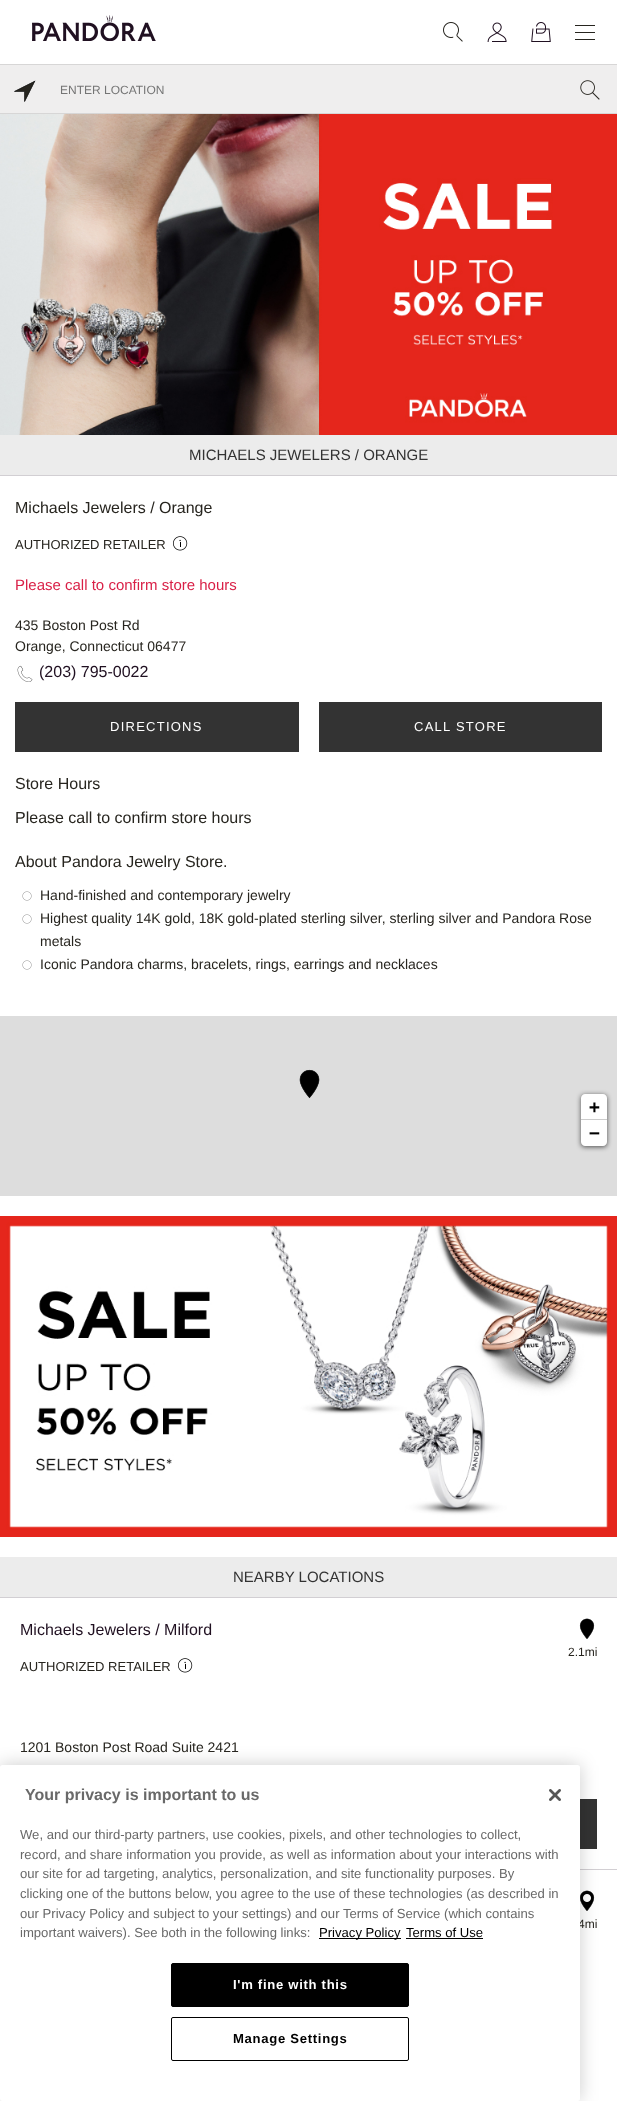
<svg xmlns="http://www.w3.org/2000/svg" width="617" height="2101">
<style>
.a{font:12px Liberation Sans;fill:#757575}
.b{font:16px Liberation Sans;fill:#27251f}
.c{font:13px Liberation Sans;fill:#27251f}
.d{font:15px Liberation Sans;fill:#d91f46}
.e{font:14px Liberation Sans;fill:#27251f}
.f{font:16px Liberation Sans;fill:#201021}
.g{font:13px Liberation Sans;letter-spacing:1.25px;fill:#fff}
.h{font:bold 18px DejaVu Sans Mono;fill:#000}
.i{font:15px Liberation Sans;fill:#333}
.j{font:12px Liberation Sans;fill:#27251f}
.k{font:bold 16px Liberation Sans;fill:#696969}
.l{font:13.1px Liberation Sans;fill:#696969}
.m{font:13.1px Liberation Sans;fill:#000}
.n{font:bold 13.1px Liberation Sans;letter-spacing:0.7px;fill:#fff}
.o{font:bold 13.1px Liberation Sans;letter-spacing:0.7px;fill:#000}
</style>
<rect width="100%" height="100%" fill="#fff"/>
<image href="1.png" x="32" y="15" width="124" height="26"/>
<image href="2.png" x="443" y="22" width="20" height="20"/>
<image href="3.png" x="487" y="22" width="20" height="20"/>
<image href="4.png" x="531" y="22" width="20" height="20"/>
<path fill="#27251f" d="M575 25h20v1H575z"/>
<path fill="#27251f" d="M575 32h20v1H575z"/>
<path fill="#27251f" d="M575 39h20v1H575z"/>
<path fill="#efeeee" d="M0 65h617v48H0z"/>
<path fill="#d7d6d6" d="M0 64h617v1H0z"/>
<path fill="#d7d6d6" d="M0 113h617v1H0z"/>
<image href="5.png" x="14" y="80" width="22" height="22"/>
<image href="6.png" x="580" y="80" width="20" height="20"/>
<image href="7.png" x="173" y="536" width="15" height="15"/>
<image href="8.png" x="17" y="665" width="16" height="17"/>
<path fill="#333" d="M15 702h284v50H15z"/>
<path fill="#333" d="M319 702h283v50H319z"/>
<image href="9.png" x="22" y="891" width="10" height="10"/>
<image href="9.png" x="22" y="914" width="10" height="10"/>
<image href="9.png" x="22" y="960" width="10" height="10"/>
<path fill="#ddd" d="M0 1016h617v180H0z"/>
<image href="10.png" x="299" y="1069" width="21" height="30"/>
<rect fill="#000000a6" filter="blur(2.5px)" x="581" y="1095" width="26" height="52" rx="4"/>
<path fill="#fff" d="M585 1094h18c2 0 4 2 4 4v22h-26v-22c0-2 2-4 4-4z"/>
<path fill="#ccc" d="M581 1119h26v1H581z"/>
<path fill="#fff" d="M581 1120h26v22c0 2-2 4-4 4h-18c-2 0-4-2-4-4z"/>
<image href="11.png" x="0" y="114" width="617" height="321"/>
<path fill="#ececec" d="M0 435h617v40H0z"/>
<path fill="#d2cfd3" d="M0 475h617v1H0z"/>
<image href="12.png" x="0" y="1216" width="617" height="321"/>
<path fill="#ececec" d="M0 1557h617v40H0z"/>
<path fill="#d2cfd3" d="M0 1597h617v1H0z"/>
<path fill="#d2cfd3" d="M580 1869h37v1H580z"/>
<image href="7.png" x="178" y="1658" width="15" height="15"/>
<image href="13.png" x="579" y="1618" width="16" height="21"/>
<path fill="#333" d="M580 1799h17v50H580z"/>
<image href="14.png" x="580" y="1890" width="15" height="21"/>
<rect fill="#00000033" filter="blur(9px)" y="1765" width="580" height="336" rx="2.5"/>
<text class="a" x="60" y="94">ENTER LOCATION</text>
<text class="b" x="15" y="513">Michaels Jewelers / Orange</text>
<text class="c" x="15" y="549">AUTHORIZED RETAILER</text>
<text class="d" x="15" y="590">Please call to confirm store hours</text>
<text class="e" x="15" y="630">435 Boston Post Rd</text>
<text class="e" x="15" y="651">Orange, Connecticut 06477</text>
<text class="f" x="39" y="677">(203) 795-0022</text>
<text class="g" x="110" y="731">DIRECTIONS</text>
<text class="g" x="414" y="731">CALL STORE</text>
<text class="b" x="15" y="789">Store Hours</text>
<text class="b" x="15" y="823">Please call to confirm store hours</text>
<text class="b" x="15" y="867">About Pandora Jewelry Store.</text>
<text class="e" x="40" y="900">Hand-finished and contemporary jewelry</text>
<text class="e" x="40" y="923">Highest quality 14K gold, 18K gold-plated sterling silver, sterling silver and Pandora Rose</text>
<text class="e" x="40" y="946">metals</text>
<text class="e" x="40" y="969">Iconic Pandora charms, bracelets, rings, earrings and necklaces</text>
<text class="h" x="589" y="1113">+</text>
<text class="h" x="589" y="1139">−</text>
<text class="i" x="189" y="460">MICHAELS JEWELERS / ORANGE</text>
<text class="i" x="233" y="1582">NEARBY LOCATIONS</text>
<text class="f" x="20" y="1635">Michaels Jewelers / Milford</text>
<text class="c" x="20" y="1671">AUTHORIZED RETAILER</text>
<text class="j" x="568" y="1656">2.1mi</text>
<text class="e" x="20" y="1752">1201 Boston Post Road Suite 2421</text>
<text class="j" x="578" y="1928">4mi</text>
<rect fill="#fff" y="1765" width="580" height="336" rx="2.5"/>
<text class="k" x="25" y="1800">Your privacy is important to us</text>
<text class="l" x="20" y="1839">We, and our third-party partners, use cookies, pixels, and other technologies to collect,</text>
<text class="l" x="20" y="1859">record, and share information you provide, as well as information about your interactions with</text>
<text class="l" x="20" y="1878">our site for ad targeting, analytics, personalization, and site functionality purposes. By</text>
<text class="l" x="20" y="1898">clicking one of the buttons below, you agree to the use of these technologies (as described in</text>
<text class="l" x="20" y="1918">our Privacy Policy and subject to your settings) and our Terms of Service (which contains</text>
<text class="l" x="20" y="1937">important waivers). See both in the following links:</text>
<path fill="#000" d="M319 1938h82v1H319z"/>
<text class="m" x="319" y="1937">Privacy Policy</text>
<text class="m" x="406" y="1937">Terms of Use</text>
<path fill="#000" d="M406 1938h77v1H406z"/>
<image href="15.png" x="549" y="1789" width="12" height="12"/>
<rect fill="#000" stroke="#000" x="171.5" y="1963.5" width="237" height="43" rx="1.5"/>
<text class="n" x="233" y="1989">I'm fine with this</text>
<rect fill="none" stroke="#000" x="171.5" y="2017.5" width="237" height="43" rx="1.5"/>
<text class="o" x="233" y="2043">Manage Settings</text>
</svg>
